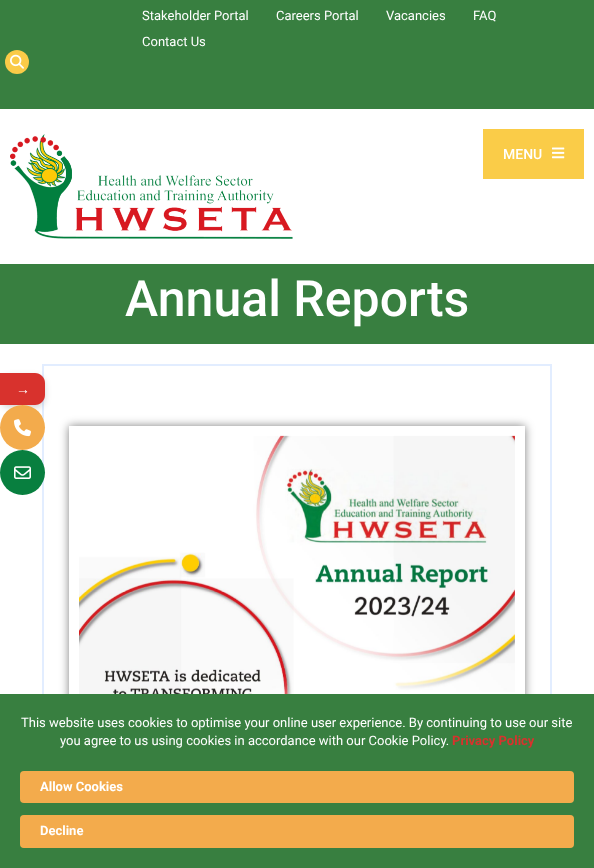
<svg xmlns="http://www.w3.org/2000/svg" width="594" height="868">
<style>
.a{font:13px Roboto;fill:#fff}
.b{font:500 14px Roboto;fill:#fff}
.c{font:500 50px Roboto;fill:#fff}
.d{font:14px Liberation Serif;fill:#fff}
.e{font:bold 13px Roboto;fill:#d8322d}
.f{font:bold 13px Roboto;fill:#fff}
</style>
<defs>
<clipPath id="clip1"><path d="M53 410h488v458h-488zm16 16h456v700h-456z" clip-rule="evenodd"/></clipPath>
</defs>
<rect width="100%" height="100%" fill="#fff"/>
<path fill="#387f40" d="M0 0h594v109H0z"/>
<circle fill="#facb48" cx="17" cy="62" r="12"/>
<image href="1.png" x="10" y="54" width="14" height="15"/>
<image href="2.png" x="10" y="134" width="283" height="105"/>
<path fill="#facc48" d="M483 129h101v50H483z"/>
<image href="3.png" x="552" y="147" width="13" height="12"/>
<path fill="#387f40" d="M0 264h594v80H0z"/>
<path fill="none" stroke="#e2edff" stroke-width="2" d="M43 365h508v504H43z"/>
<rect fill="#00000029" filter="blur(3px)" y="376" width="45" height="32" rx="10"/>
<path fill="#d8322d" d="M0 373h35c5.5 0 10 4.5 10 10v12c0 5.5-4.5 10-10 10h-35z"/>
<circle fill="#f3ab4c" cx="22.5" cy="427.5" r="22.5"/>
<image href="4.png" x="14" y="419" width="17" height="18"/>
<circle fill="#087f3f" cx="22.5" cy="472.5" r="22.5"/>
<image href="5.png" x="14" y="466" width="17" height="13"/>
<g clip-path="url(#clip1)">
<path fill="#00000080" filter="blur(5px)" d="M69 426h456v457H69z"/>
</g>
<image href="6.png" x="79" y="435" width="436" height="259"/>
<path fill="#387f40" d="M0 694h594v174H0z"/>
<rect fill="#f3ab4c" x="20" y="771" width="554" height="32" rx="4"/>
<rect fill="#f3ab4c" x="20" y="815" width="554" height="33" rx="4"/>
<rect fill="none" stroke="#f3ab4c4d" x="20.5" y="815.5" width="553" height="32" rx="3.5"/>
<text class="a" x="142" y="20">Stakeholder Portal</text>
<text class="a" x="276" y="20">Careers Portal</text>
<text class="a" x="386" y="20">Vacancies</text>
<text class="a" x="473" y="20">FAQ</text>
<text class="a" x="142" y="46">Contact Us</text>
<text class="b" x="503" y="159">MENU</text>
<text class="c" x="125" y="316">Annual Reports</text>
<text class="d" x="16" y="394">→</text>
<text class="a" x="21" y="727">This website uses cookies to optimise your online user experience. By continuing to use our site</text>
<text class="a" x="60" y="745">you agree to us using cookies in accordance with our Cookie Policy.</text>
<text class="e" x="452" y="745">Privacy Policy</text>
<text class="f" x="40" y="791">Allow Cookies</text>
<text class="f" x="40" y="835">Decline</text>
</svg>
